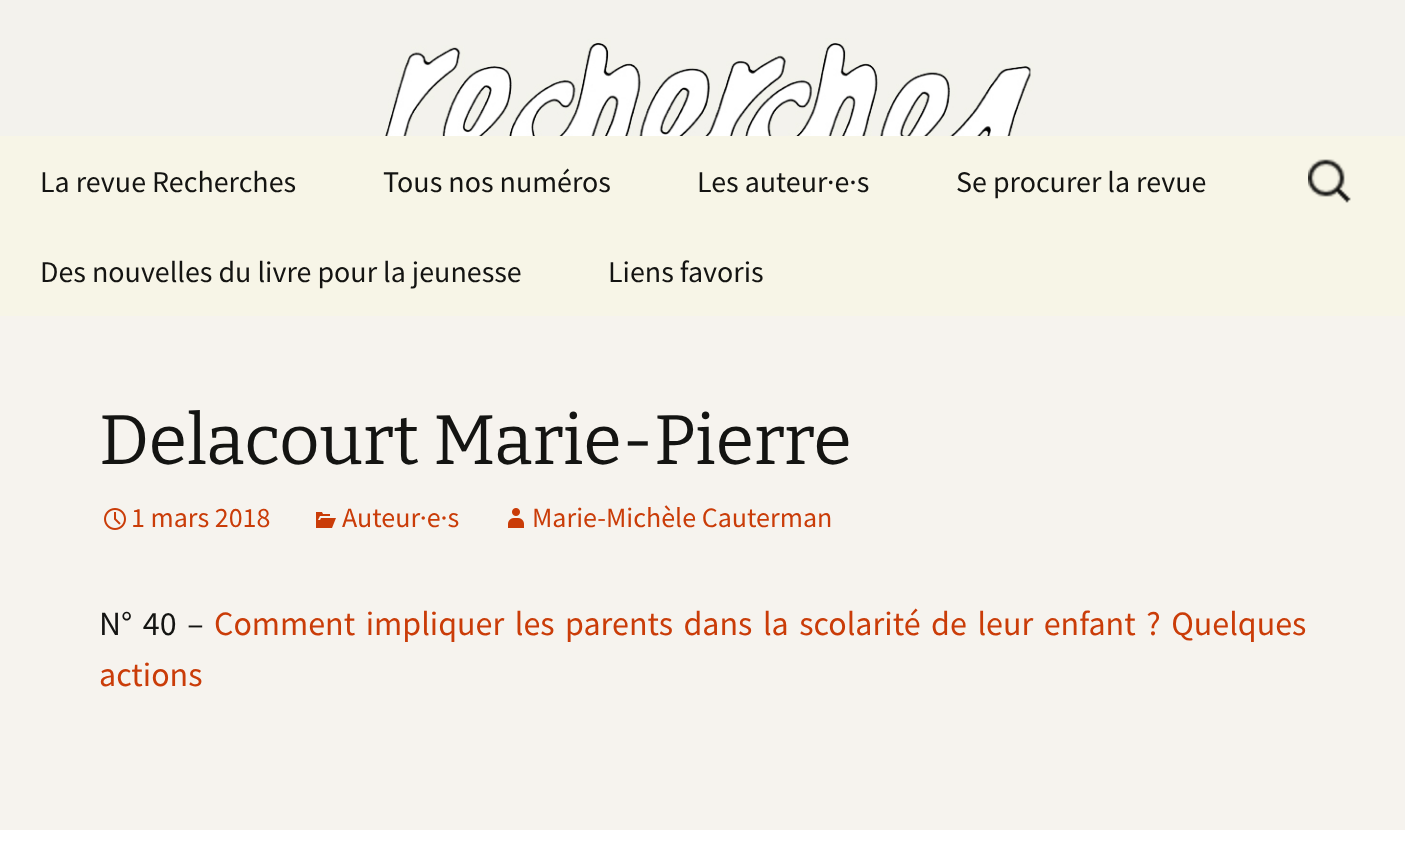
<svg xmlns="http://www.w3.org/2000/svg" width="1405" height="859">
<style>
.a{font:30px Source Sans Pro;fill:#141412}
.b{font:70px Bitter;fill:#141412}
.c{font:28px Source Sans Pro;fill:#ca3c08}
.d{font:34px Source Sans Pro;fill:#141412}
.e{font:34px Source Sans Pro;fill:#ca3c08}
</style>
<rect width="100%" height="100%" fill="#fff"/>
<image href="1.png" x="0" y="0" width="1405" height="136"/>
<path fill="#f7f5e7" d="M0 136h1405v180H0z"/>
<image href="2.png" x="1308" y="159" width="43" height="44"/>
<path fill="#f6f3ee" d="M0 316h1405v514H0z"/>
<image href="3.png" x="104" y="508" width="22" height="22"/>
<image href="4.png" x="316" y="512" width="20" height="16"/>
<image href="5.png" x="508" y="508" width="16" height="20"/>
<text class="a" x="40" y="192">La revue Recherches</text>
<text class="a" x="383" y="192">Tous nos numéros</text>
<text class="a" x="697" y="192">Les auteur·e·s</text>
<text class="a" x="956" y="192">Se procurer la revue</text>
<text class="a" x="40" y="282">Des nouvelles du livre pour la jeunesse</text>
<text class="a" x="608" y="282">Liens favoris</text>
<text class="b" x="99" y="464">Delacourt Marie-Pierre</text>
<text class="c" x="131" y="527">1 mars 2018</text>
<text class="c" x="342" y="527">Auteur·e·s</text>
<text class="c" x="532" y="527">Marie-Michèle Cauterman</text>
<text class="d" x="99" y="635" word-spacing="3.75">N° 40 –</text>
<text class="e" x="214" y="635" word-spacing="3.75">Comment impliquer les parents dans la scolarité de leur enfant ? Quelques</text>
<text class="e" x="99" y="686">actions</text>
</svg>
